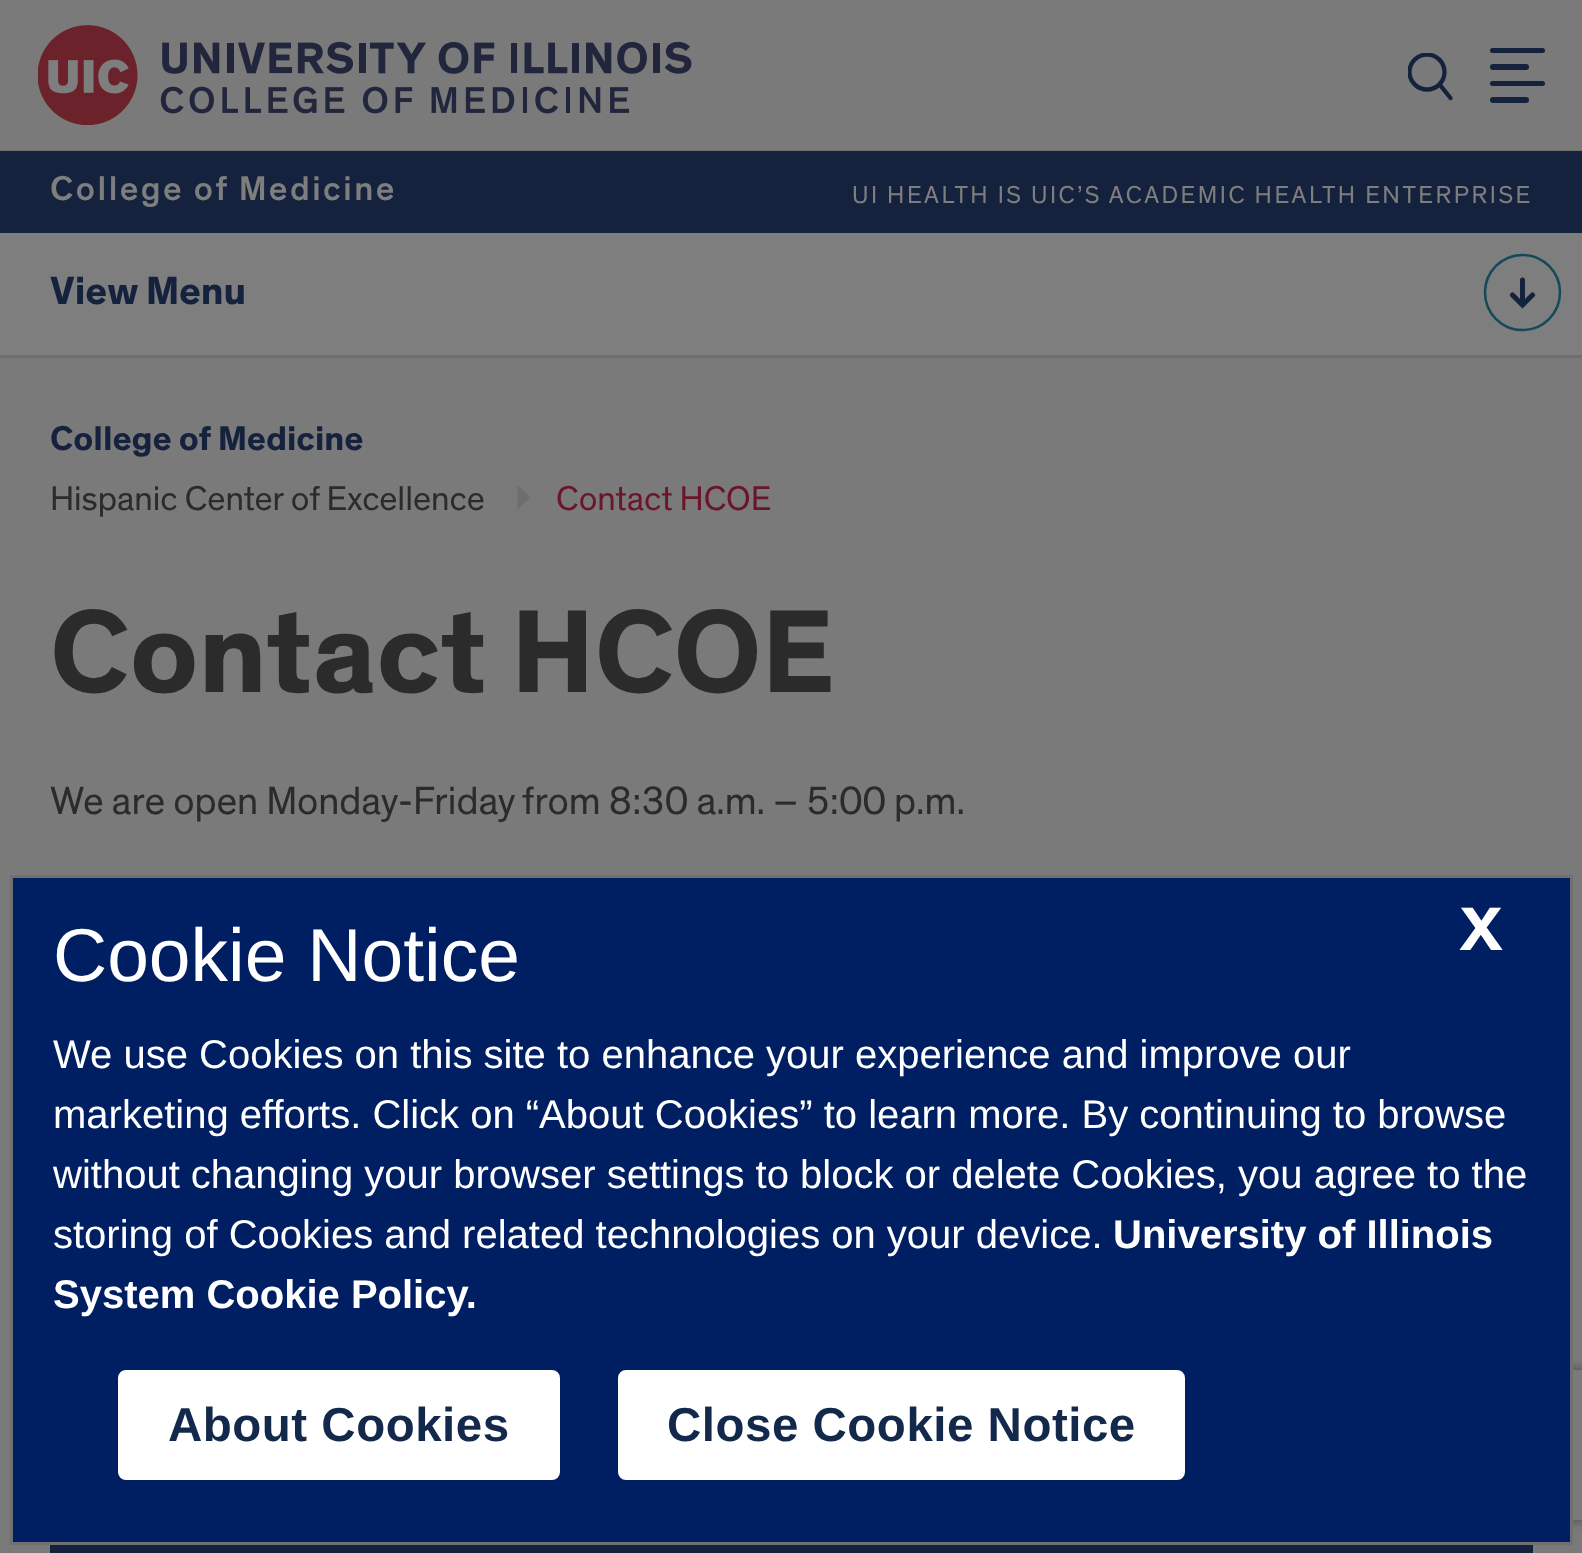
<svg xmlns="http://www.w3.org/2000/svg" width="1582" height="1553">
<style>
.a{font:500 35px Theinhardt;letter-spacing:2.5px;fill:#7e7e7e}
.b{font:25px Theinhardt;letter-spacing:2.5px;fill:#7e7e7e}
.c{font:bold 40px Theinhardt;fill:#15223d}
.d{font:bold 35px Theinhardt;fill:#15223d}
.e{font:35px Theinhardt;fill:#2b2b2b}
.f{font:35px Theinhardt;fill:#6b1529}
.g{font:bold 120px Theinhardt;fill:#2b2b2b}
.h{font:40px Theinhardt;fill:#2b2b2b}
.i{font:75px Liberation Sans;fill:#fff}
.j{font:bold 62px Theinhardt;fill:#fff}
.k{font:40px Liberation Sans;fill:#fff}
.l{font:bold 40px Liberation Sans;fill:#fff}
.m{font:bold 47.5px Liberation Sans;letter-spacing:0.5px;fill:#13294b}
</style>
<defs>
<clipPath id="clip1"><path d="M1408 53h47v47H1408z"/></clipPath>
<clipPath id="clip2"><path d="M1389 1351h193v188h-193zm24 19h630c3 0 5 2 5 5v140c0 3-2 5-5 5h-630c-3 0-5-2-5-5v-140c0-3 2-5 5-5z" clip-rule="evenodd"/></clipPath>
</defs>
<rect width="100%" height="100%" fill="#7a7a7a"/>
<image href="1.png" x="38" y="25" width="654" height="100"/>
<g clip-path="url(#clip1)">
<circle fill="none" stroke="#15223d" stroke-width="4.3" cx="1427" cy="72" r="17.5"/>
</g>
<path fill="none" stroke="#15223d" stroke-width="4.3" stroke-linecap="round" d="M1450.5 98l-10.5-13"/>
<rect fill="#15223d" x="1490" y="48" width="55" height="5" rx="2.5"/>
<rect fill="#15223d" x="1490" y="97" width="39" height="6" rx="3"/>
<rect fill="#15223d" x="1490" y="81" width="55" height="5" rx="2.5"/>
<rect fill="#15223d" x="1490" y="64" width="39" height="6" rx="3"/>
<path fill="#6e6e6e" d="M0 150h1582v1H0z"/>
<path fill="#15223d" d="M0 151h1582v82H0z"/>
<path fill="#7e7e7e" d="M0 233h1582v122H0z"/>
<path fill="#6e6e6e" d="M0 355h1582v3H0z"/>
<circle fill="none" stroke="#154959" stroke-width="2.5" cx="1522.5" cy="292.5" r="37.5"/>
<path fill="none" stroke="#15223d" stroke-width="5" stroke-linecap="round" d="M1512.5 295l10 10l10-10m-10 7.5v-22.5"/>
<path fill="#6e6e6e" d="M517.5 510v-25l12.5 12.5z"/>
<path fill="#15223d" d="M50 1545h1483v8H50z"/>
<g clip-path="url(#clip2)">
<rect fill="#4a4a4a" filter="blur(6px)" x="1408" y="1370" width="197" height="150" rx="5"/>
</g>
<path fill="#001e62" stroke="#707070" stroke-width="3" d="M11.5 876.5h1560v667H11.5z"/>
<rect fill="#fff" stroke="#001e62" stroke-width="5" x="115.5" y="1367.5" width="447" height="115" rx="10.5"/>
<rect fill="#fff" stroke="#001e62" stroke-width="5" x="615.5" y="1367.5" width="572" height="115" rx="10.5"/>
<text class="a" x="50" y="200">College of Medicine</text>
<text class="b" x="852" y="203">UI HEALTH IS UIC’S ACADEMIC HEALTH ENTERPRISE</text>
<text class="c" x="50" y="304">View Menu</text>
<text class="d" x="50" y="450">College of Medicine</text>
<text class="e" x="50" y="510">Hispanic Center of Excellence</text>
<text class="f" x="556" y="510">Contact HCOE</text>
<text class="g" x="50" y="692">Contact HCOE</text>
<text class="h" x="50" y="814">We are open Monday-Friday from 8:30 a.m. – 5:00 p.m.</text>
<text class="i" x="53" y="981">Cookie Notice</text>
<text class="j" x="1460" y="950">X</text>
<text class="k" x="53" y="1068">We use Cookies on this site to enhance your experience and improve our</text>
<text class="k" x="53" y="1128">marketing efforts. Click on “About Cookies” to learn more. By continuing to browse</text>
<text class="k" x="53" y="1188">without changing your browser settings to block or delete Cookies, you agree to the</text>
<text class="k" x="53" y="1248">storing of Cookies and related technologies on your device.</text>
<text class="l" x="1113" y="1248">University of Illinois</text>
<text class="l" x="53" y="1308">System Cookie Policy.</text>
<text class="m" x="168" y="1441">About Cookies</text>
<text class="m" x="667" y="1441">Close Cookie Notice</text>
</svg>
